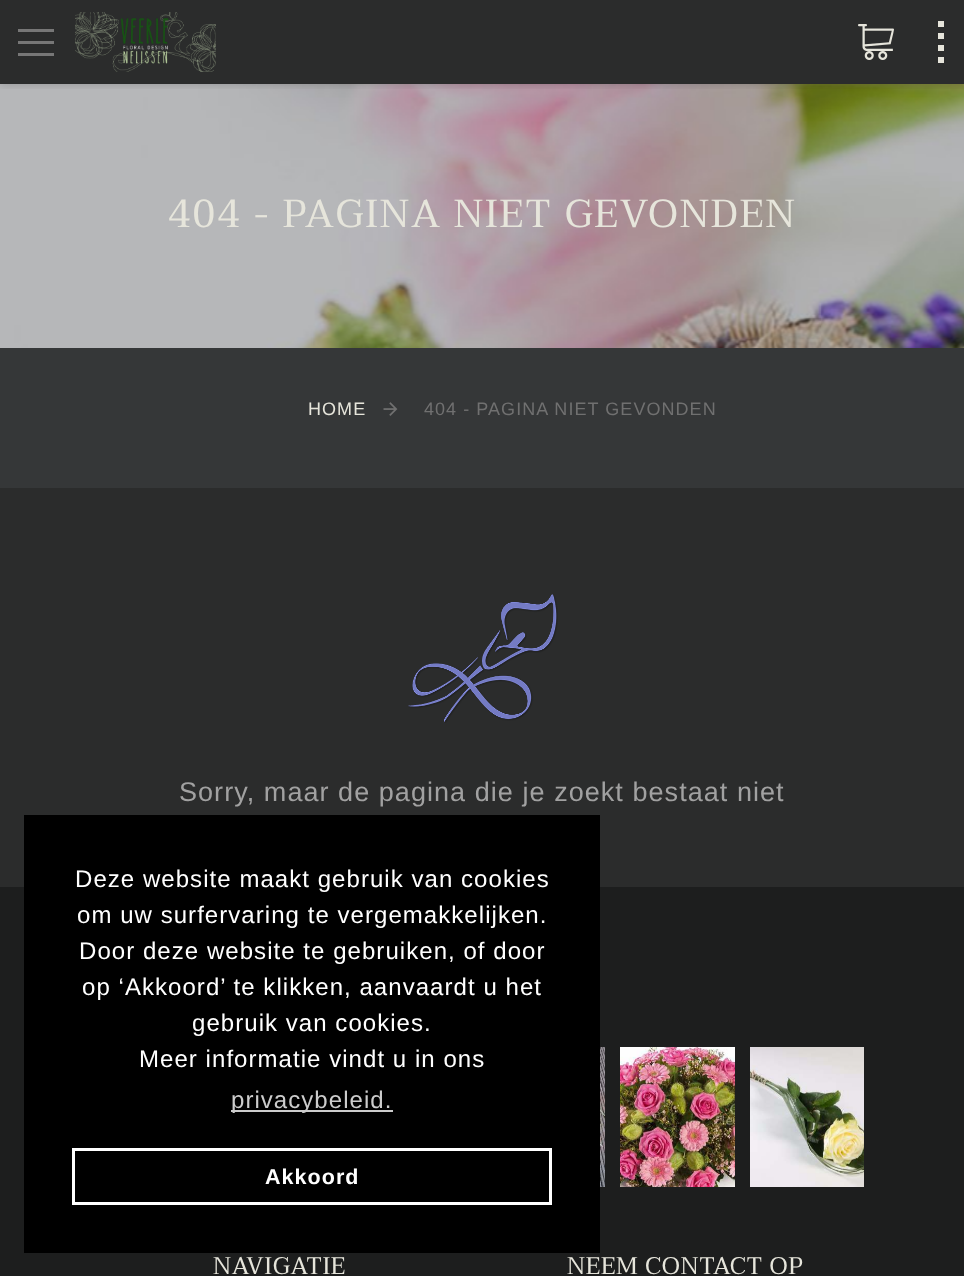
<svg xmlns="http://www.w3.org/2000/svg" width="964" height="1276">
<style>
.a{font:39px Taviraj;letter-spacing:1.95px;fill:#e6e5db}
.b{font:18px Liberation Sans;letter-spacing:1.05px;fill:#e6e5db}
.c{font:18px Liberation Sans;letter-spacing:1.05px;fill:#707070}
.d{font:27px Liberation Sans;letter-spacing:1.05px;fill:#a1a1a1}
.e{font:24px Taviraj;letter-spacing:0.6px;fill:#e6e5db}
.f{font:24px Liberation Sans;letter-spacing:1.05px;fill:#fff}
.g{font:24px Liberation Sans;letter-spacing:1.05px;fill:#ccc}
.h{font:bold 21.5px Liberation Sans;letter-spacing:1.05px;fill:#fff}
</style>
<defs>
<clipPath id="clip1"><path d="M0 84h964v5H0z"/></clipPath>
</defs>
<rect width="100%" height="100%" fill="#2b2c2c"/>
<image href="3.png" x="0" y="84" width="964" height="264"/>
<g clip-path="url(#clip1)">
<path fill="#01030430" filter="blur(4px)" d="M0 0h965v84H0z"/>
</g>
<path fill="#777" d="M18 41h36v3H18z"/>
<path fill="#777" d="M18 29h36v3H18z"/>
<path fill="#777" d="M18 53h36v3H18z"/>
<image href="1.png" x="75" y="12" width="141" height="60"/>
<image href="2.png" x="858" y="24" width="36" height="36"/>
<path fill="#e6e5db" d="M938 21h6v6H938z"/>
<path fill="#e6e5db" d="M938 33h6v6H938z"/>
<path fill="#e6e5db" d="M938 45h6v6H938z"/>
<path fill="#e6e5db" d="M938 57h6v6H938z"/>
<path fill="#353738" d="M0 348h964v140H0z"/>
<image href="4.png" x="383" y="402" width="15" height="14"/>
<image href="5.png" x="408" y="594" width="150" height="129"/>
<path fill="#1d1e1e" d="M0 887h964v389H0z"/>
<image href="6.png" x="600" y="1047" width="5" height="140"/>
<image href="7.png" x="620" y="1047" width="115" height="140"/>
<image href="8.png" x="750" y="1047" width="114" height="140"/>
<path fill="#000" d="M24 815h576v438H24z"/>
<path fill="#ccc" d="M231 1110h162v2H231z"/>
<path fill="none" stroke="#fff" stroke-width="3" d="M73.5 1149.5h477v54H73.5z"/>
<text class="a" x="168" y="227">404 - PAGINA NIET GEVONDEN</text>
<text class="b" x="308" y="415">HOME</text>
<text class="c" x="424" y="415">404 - PAGINA NIET GEVONDEN</text>
<text class="d" x="179" y="801">Sorry, maar de pagina die je zoekt bestaat niet</text>
<text class="e" x="213" y="1274">NAVIGATIE</text>
<text class="e" x="567" y="1274">NEEM CONTACT OP</text>
<text class="f" x="75" y="887">Deze website maakt gebruik van cookies</text>
<text class="f" x="77" y="923">om uw surfervaring te vergemakkelijken.</text>
<text class="f" x="79" y="959">Door deze website te gebruiken, of door</text>
<text class="f" x="82" y="995">op ‘Akkoord’ te klikken, aanvaardt u het</text>
<text class="f" x="192" y="1031">gebruik van cookies.</text>
<text class="f" x="139" y="1067">Meer informatie vindt u in ons</text>
<text class="g" x="231" y="1108">privacybeleid.</text>
<text class="h" x="265" y="1184">Akkoord</text>
</svg>
